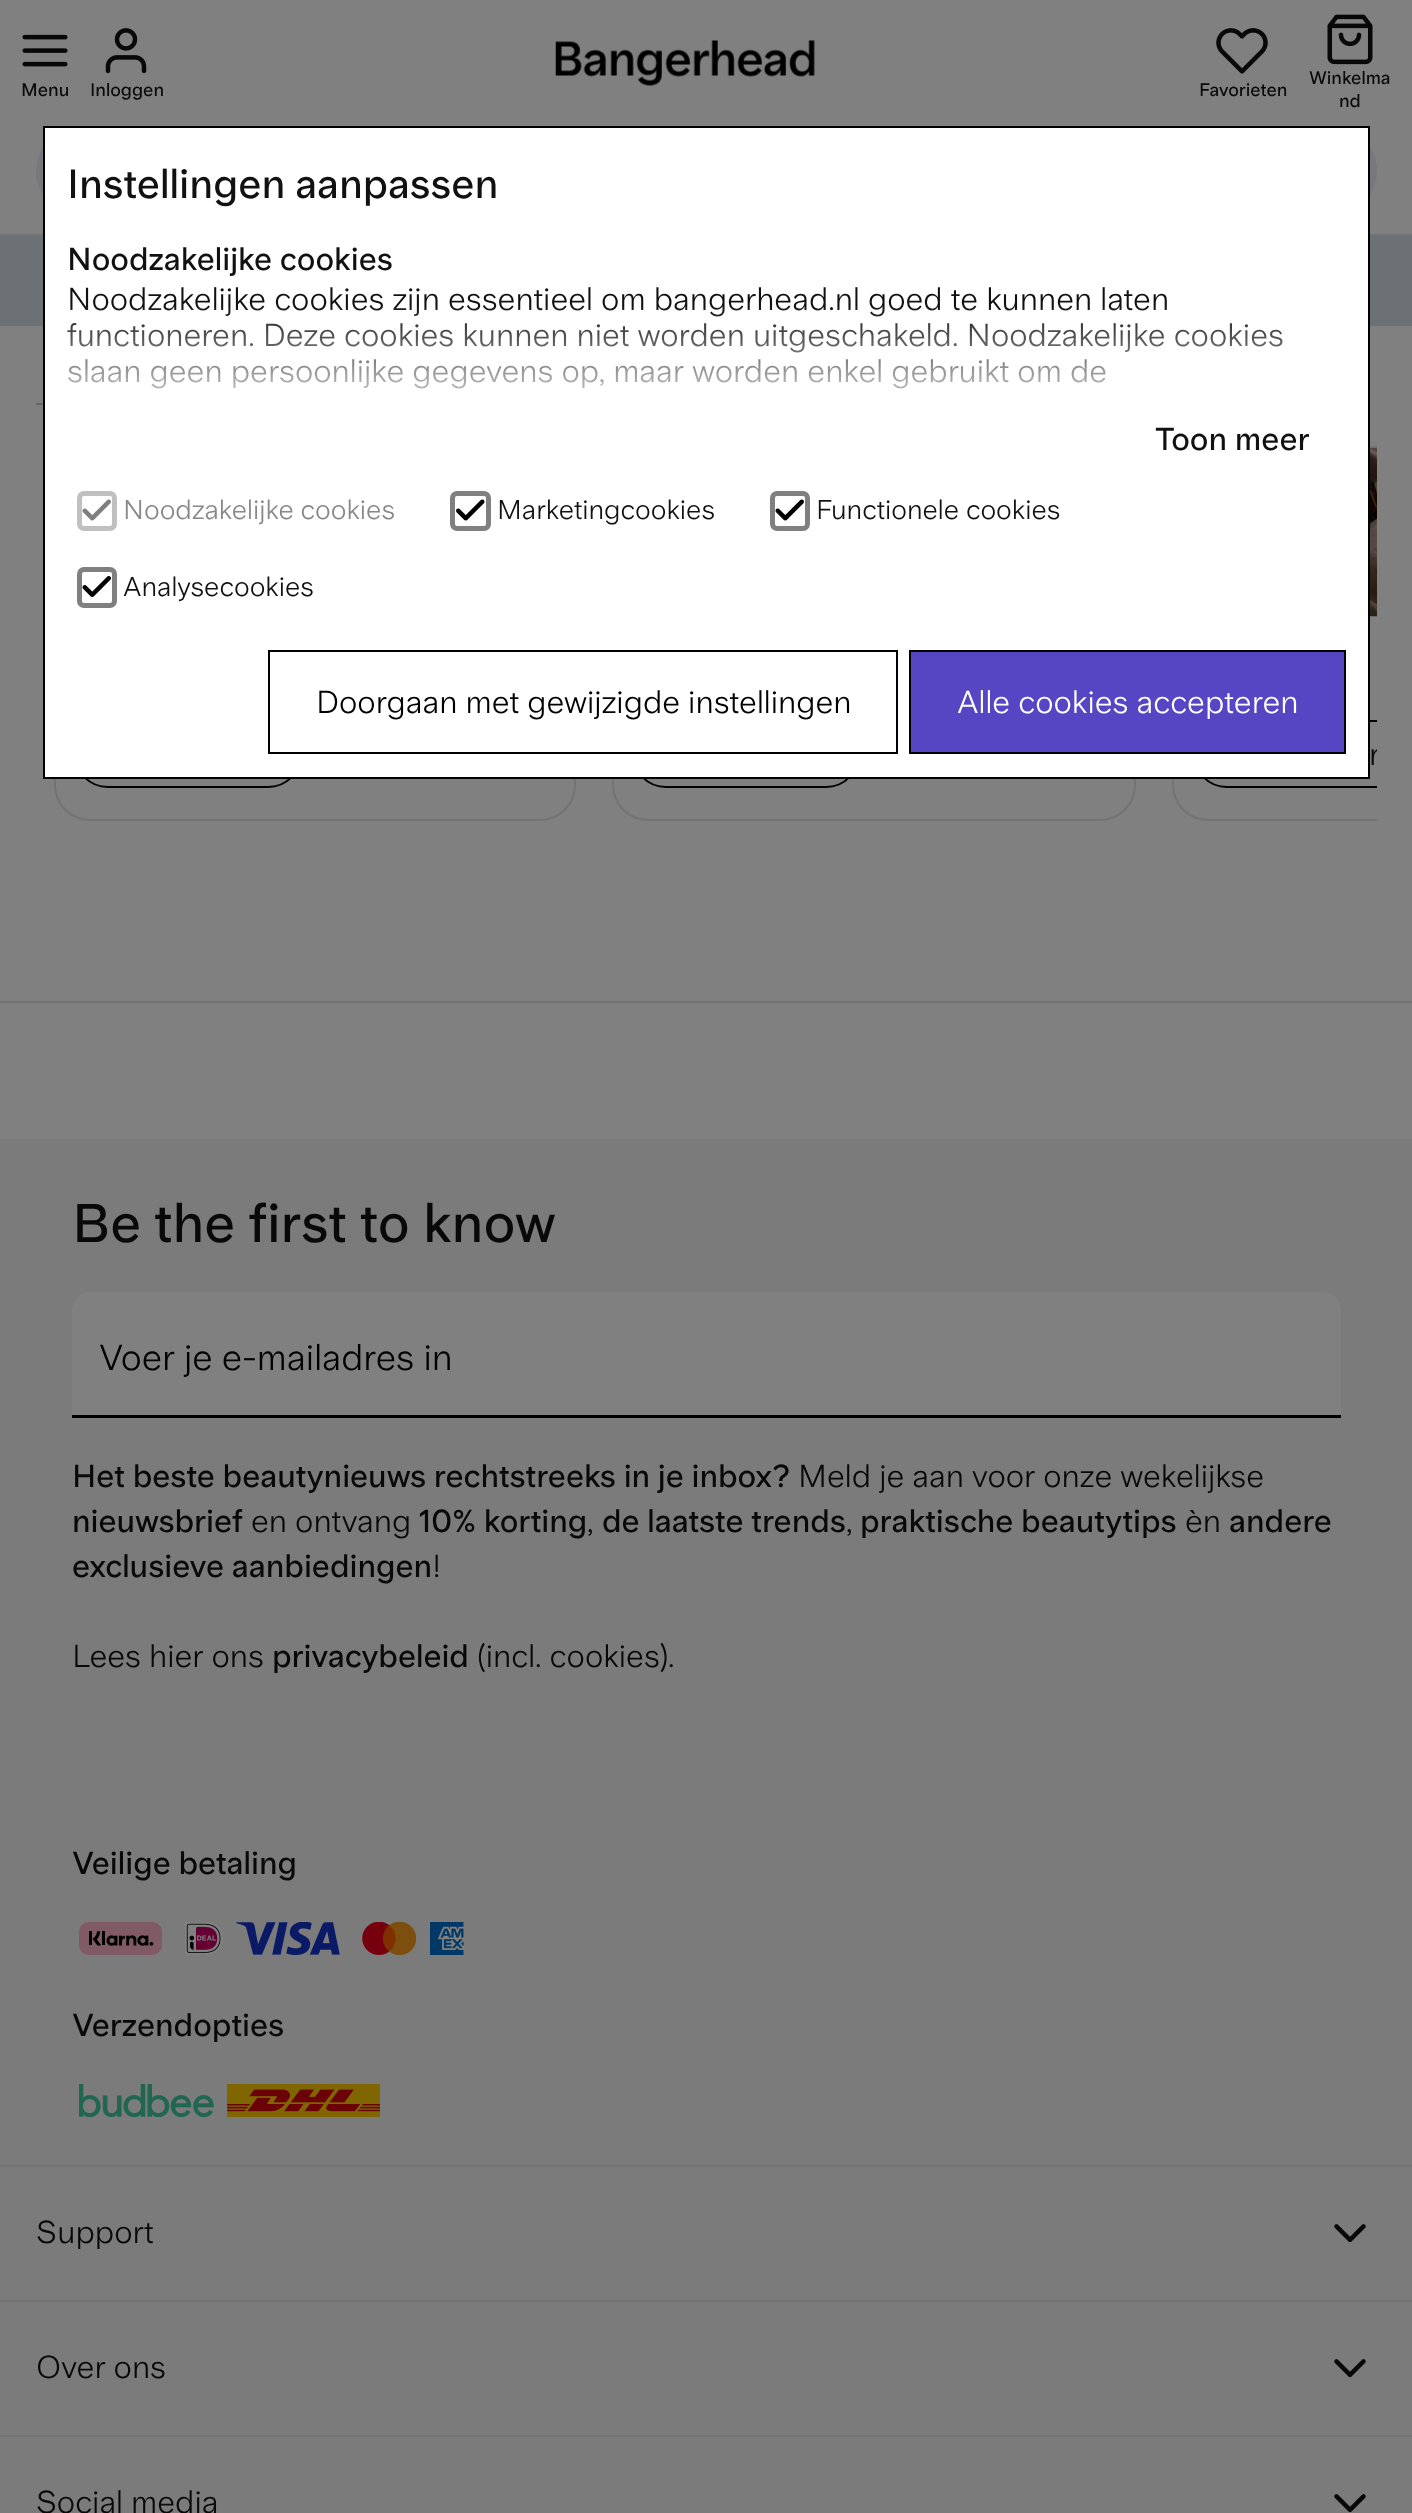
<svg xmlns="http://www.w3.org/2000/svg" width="1412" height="2513">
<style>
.a{font:600 18px 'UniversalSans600';fill:#090909}
.b{font:31.5px 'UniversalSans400';fill:#090909}
.c{font:600 54px 'UniversalSans600';fill:#090909}
.d{font:36px 'UniversalSans400';fill:#000}
.e{font:600 31.5px 'UniversalSans600';fill:#090909}
.f{font:600 40.5px 'UniversalSans600';fill:#111}
.g{font:600 31.5px 'UniversalSans600';fill:#111}
.h{font:31.5px 'UniversalSans400';fill:#111}
.i{font:27px 'UniversalSans400';fill:#888}
.j{font:27px 'UniversalSans400';fill:#111}
.k{font:31.5px 'UniversalSans400';fill:#000}
.l{font:31.5px 'UniversalSans400';fill:#fff}
</style>
<defs>
<clipPath id="clip1"><path d="M36 446h1341v375H36z"/></clipPath>
<linearGradient id="g1" gradientUnits="userSpaceOnUse" x1="707" y1="461" x2="707" y2="304"><stop offset="0.2" stop-color="#fff" stop-opacity="0.93"/><stop offset="0.5" stop-color="#fff" stop-opacity="0.66"/><stop offset="1" stop-color="#fff" stop-opacity="0"/></linearGradient>
</defs>
<rect width="100%" height="100%" fill="#808080"/>
<image href="1.png" x="22" y="34" width="46" height="33"/>
<image href="2.png" x="105" y="28" width="42" height="46"/>
<image href="3.png" x="555" y="40" width="260" height="46"/>
<image href="4.png" x="1216" y="28" width="52" height="46"/>
<image href="5.png" x="1327" y="14" width="46" height="51"/>
<path fill="#737373" d="M0 234h1412v2H0z"/>
<rect fill="#77777d" x="36" y="126" width="1341" height="90" rx="45"/>
<path fill="#6c7176" d="M0 236h1412v90H0z"/>
<path fill="#737373" d="M0 1001h1412v2H0z"/>
<path fill="#676767" d="M36 403h7v2H36z"/>
<rect fill="none" stroke="#737373" stroke-width="2" x="55" y="447" width="520" height="373" rx="35"/>
<rect fill="none" stroke="#000" stroke-width="2" x="75" y="721" width="226" height="66" rx="33"/>
<rect fill="none" stroke="#737373" stroke-width="2" x="613" y="447" width="522" height="373" rx="35"/>
<rect fill="none" stroke="#000" stroke-width="2" x="633" y="721" width="226" height="66" rx="33"/>
<g clip-path="url(#clip1)">
<rect fill="none" stroke="#737373" stroke-width="2" x="1173" y="447" width="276" height="373" rx="35"/>
</g>
<image href="6.png" x="1370" y="447" width="7" height="170"/>
<g clip-path="url(#clip1)">
<rect fill="none" stroke="#000" stroke-width="2" x="1194" y="721" width="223" height="66" rx="33"/>
</g>
<path fill="#7b7b7b" d="M0 1139h1412v1374H0z"/>
<path fill="#737373" d="M0 2165h1412v2H0z"/>
<path fill="#808080" d="M90 1292h1233c10 0 18 8 18 18v108h-1269v-108c0-10 8-18 18-18z"/>
<path fill="#000" d="M72 1415h1269v3H72z"/>
<image href="7.png" x="79" y="1922" width="83" height="33"/>
<image href="8.png" x="185" y="1922" width="38" height="33"/>
<image href="9.png" x="236" y="1922" width="104" height="33"/>
<image href="10.png" x="362" y="1922" width="54" height="33"/>
<image href="11.png" x="430" y="1922" width="34" height="33"/>
<image href="12.png" x="79" y="2084" width="135" height="33"/>
<image href="13.png" x="227" y="2084" width="153" height="33"/>
<path fill="#737373" d="M0 2300h1412v2H0z"/>
<image href="14.png" x="1334" y="2224" width="32" height="19"/>
<path fill="#737373" d="M0 2435h1412v2H0z"/>
<image href="14.png" x="1334" y="2359" width="32" height="19"/>
<image href="14.png" x="1334" y="2494" width="32" height="19"/>
<path fill="#fff" stroke="#000" stroke-width="2" d="M44 127h1325v651H44z"/>
<rect fill="none" stroke="#c0c0c0" stroke-width="5" x="79.5" y="493.5" width="35" height="35" rx="4.5"/>
<image href="15.png" x="82" y="499" width="29" height="22"/>
<image href="16.png" x="456" y="499" width="29" height="22"/>
<rect fill="none" stroke="#808080" stroke-width="5" x="452.5" y="493.5" width="36" height="35" rx="4.5"/>
<image href="17.png" x="775" y="499" width="29" height="22"/>
<rect fill="none" stroke="#808080" stroke-width="5" x="772.5" y="493.5" width="35" height="35" rx="4.5"/>
<image href="18.png" x="82" y="576" width="29" height="21"/>
<rect fill="none" stroke="#808080" stroke-width="5" x="79.5" y="569.5" width="35" height="36" rx="4.5"/>
<path fill="none" stroke="#000" stroke-width="2" d="M269 651h628v102H269z"/>
<path fill="#5546c3" stroke="#000" stroke-width="2" d="M910 651h435v102H910z"/>
<text class="a" x="21" y="96">Menu</text>
<text class="a" x="90" y="96">Inloggen</text>
<text class="a" x="1199" y="96">Favorieten</text>
<text class="a" x="1309" y="84">Winkelma</text>
<text class="a" x="1339" y="107">nd</text>
<g clip-path="url(#clip1)">
<text class="b" x="1369" y="765">r</text>
</g>
<text class="c" x="72" y="1242">Be the first to know</text>
<text class="d" x="99" y="1370">Voer je e-mailadres in</text>
<text class="e" x="72" y="1487">Het beste beautynieuws rechtstreeks in je inbox?</text>
<text class="b" x="798" y="1487">Meld je aan voor onze wekelijkse</text>
<text class="e" x="72" y="1532">nieuwsbrief</text>
<text class="b" x="251" y="1532">en ontvang</text>
<text class="e" x="419" y="1532">10% korting</text>
<text class="b" x="587" y="1532">,</text>
<text class="e" x="602" y="1532">de laatste trends</text>
<text class="b" x="846" y="1532">,</text>
<text class="e" x="860" y="1532">praktische beautytips</text>
<text class="b" x="1185" y="1532">èn</text>
<text class="e" x="1229" y="1532">andere</text>
<text class="e" x="72" y="1577">exclusieve aanbiedingen</text>
<text class="b" x="432" y="1577">!</text>
<text class="b" x="72" y="1667">Lees hier ons</text>
<text class="e" x="272" y="1667">privacybeleid</text>
<text class="b" x="477" y="1667">(incl. cookies).</text>
<text class="e" x="72" y="1874">Veilige betaling</text>
<text class="e" x="72" y="2036">Verzendopties</text>
<text class="b" x="36" y="2243">Support</text>
<text class="b" x="36" y="2378">Over ons</text>
<text class="b" x="36" y="2513">Social media</text>
<text class="f" x="67" y="198">Instellingen aanpassen</text>
<text class="g" x="67" y="270">Noodzakelijke cookies</text>
<text class="h" x="67" y="310">Noodzakelijke cookies zijn essentieel om bangerhead.nl goed te kunnen laten</text>
<text class="h" x="67" y="346">functioneren. Deze cookies kunnen niet worden uitgeschakeld. Noodzakelijke cookies</text>
<text class="h" x="67" y="382">slaan geen persoonlijke gegevens op, maar worden enkel gebruikt om de</text>
<path fill="url(#g1)" d="M68 307h1215v82H68z"/>
<text class="g" x="1155" y="450">Toon meer</text>
<text class="i" x="123" y="519">Noodzakelijke cookies</text>
<text class="j" x="497" y="519">Marketingcookies</text>
<text class="j" x="816" y="519">Functionele cookies</text>
<text class="j" x="123" y="596">Analysecookies</text>
<text class="k" x="316" y="713">Doorgaan met gewijzigde instellingen</text>
<text class="l" x="957" y="713">Alle cookies accepteren</text>
</svg>
